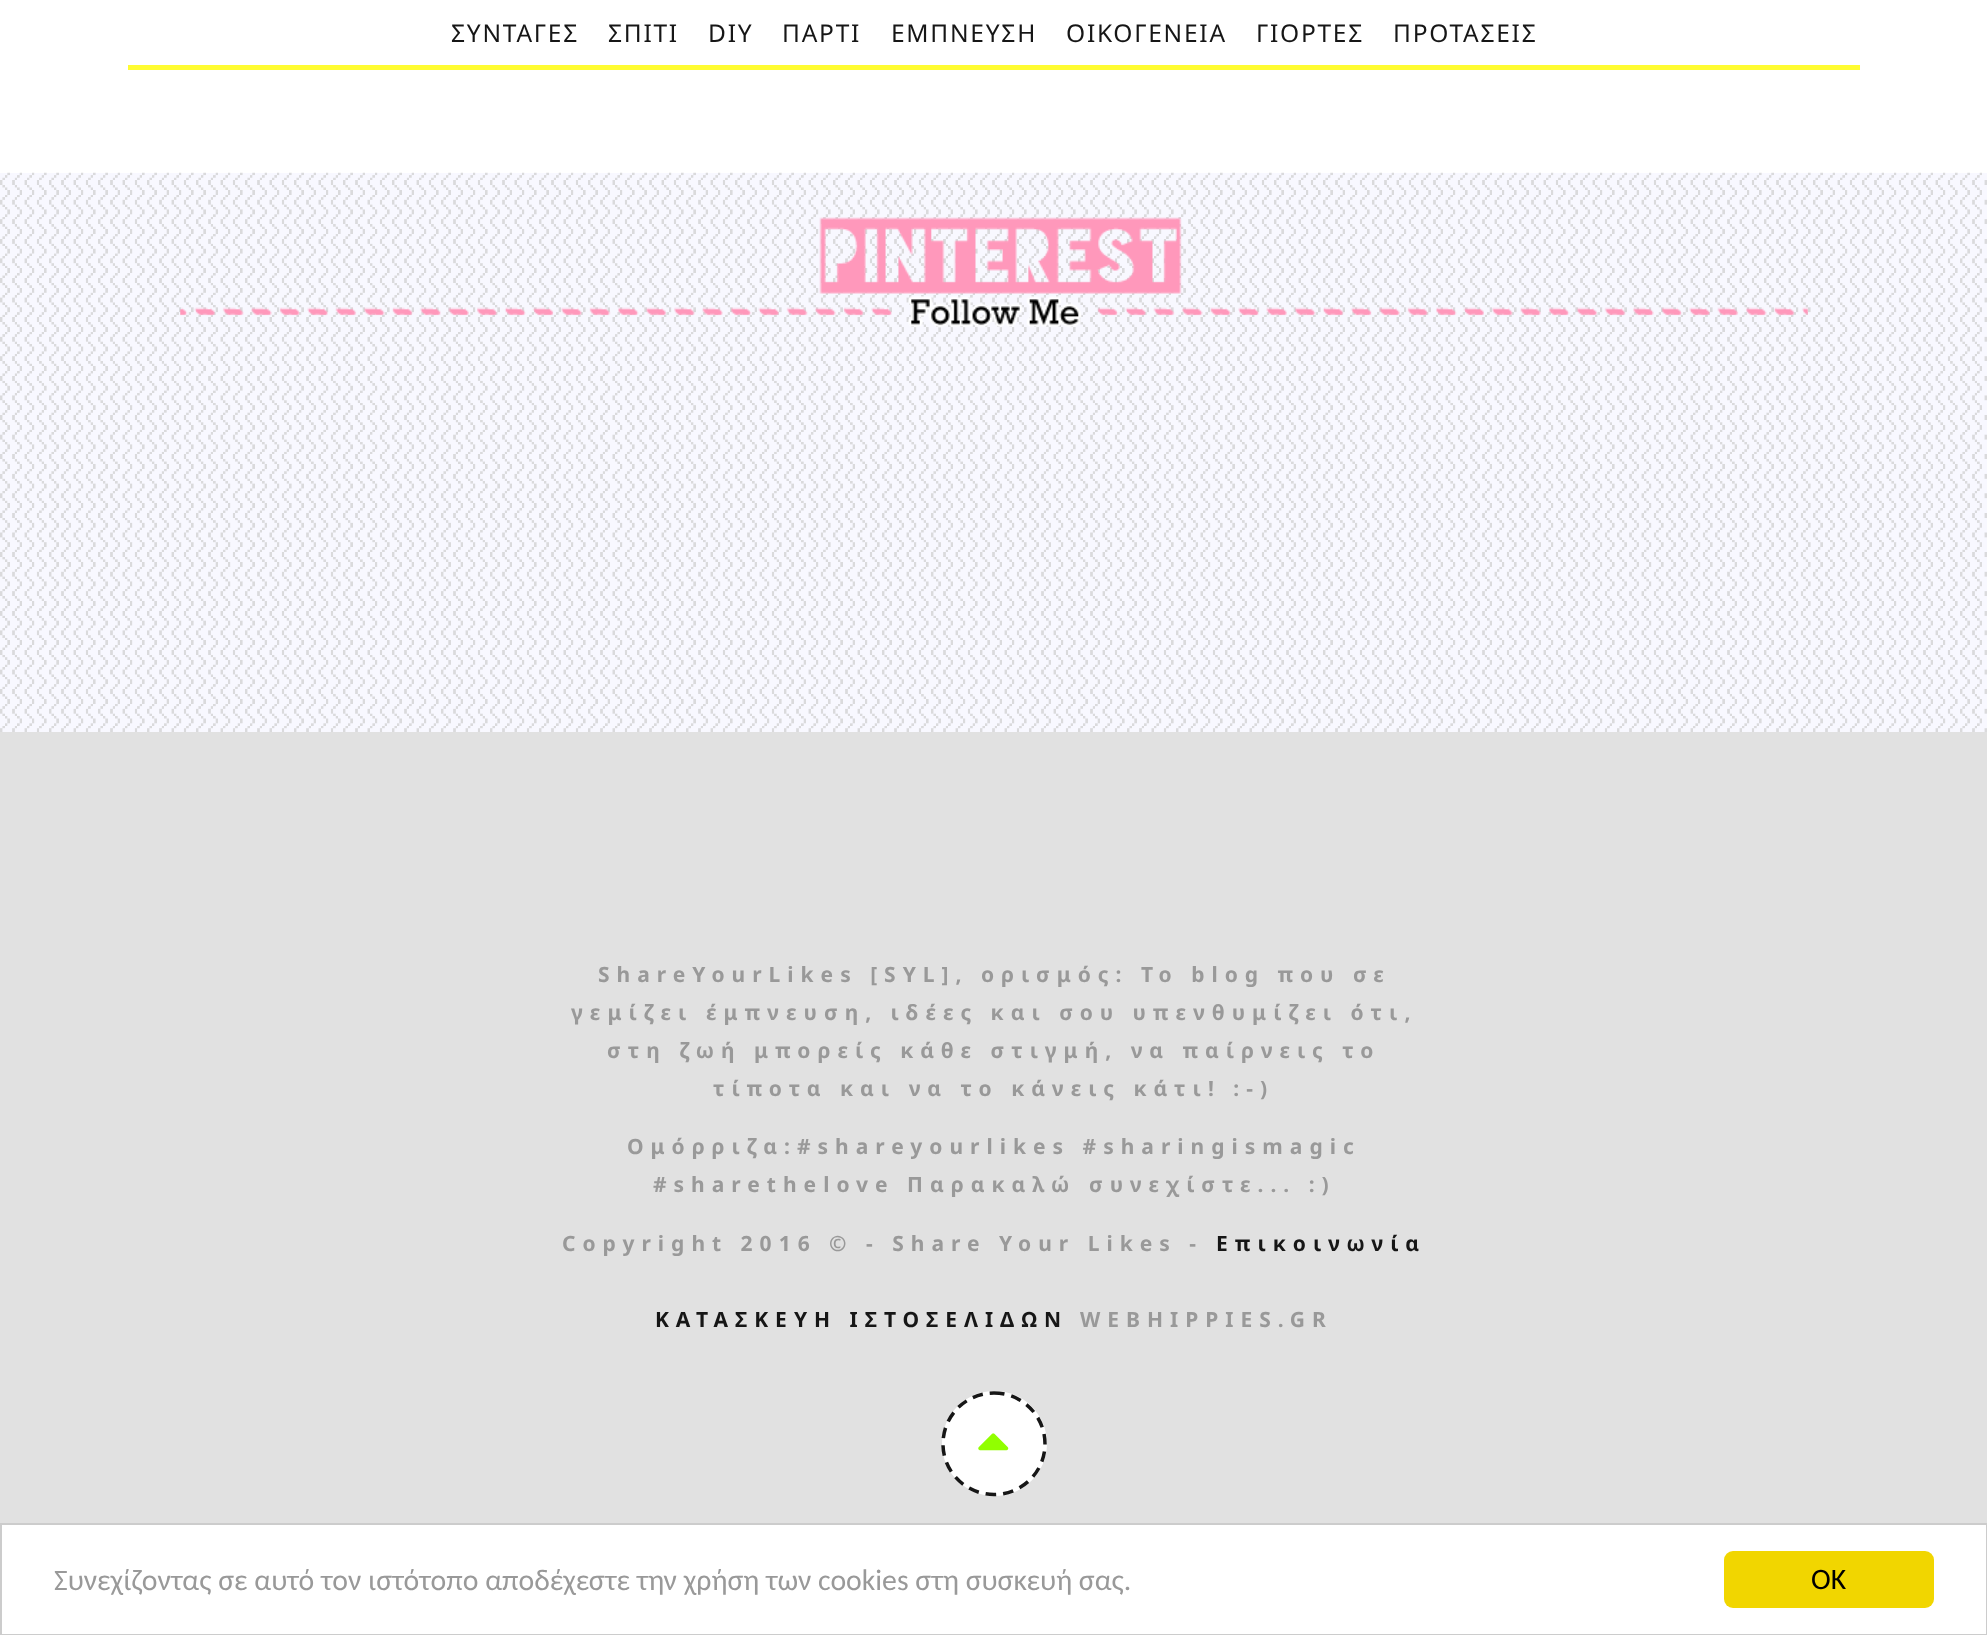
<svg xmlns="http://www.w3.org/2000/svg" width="1987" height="1635">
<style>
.a{font:24.5px Noto Sans;letter-spacing:1.75px;fill:#161616}
.b{font:bold 21px Noto Sans;letter-spacing:7px;fill:#999}
.c{font:bold 21px Noto Sans;letter-spacing:7px;fill:#161616}
.d{font:29.75px Carlito;fill:#999}
.e{font:29.75px Carlito;fill:#000}
</style>
<rect width="100%" height="100%" fill="#fff"/>
<path fill="#fffc31" d="M128 65h1732v5H128z"/>
<path fill="#f8f8ff" d="M0 173h1987v559H0z"/>
<image href="1.png" x="0" y="172" width="1987" height="560"/>
<image href="2.png" x="180" y="217" width="1628" height="111"/>
<path fill="#e1e1e1" d="M0 732h1987v791H0z"/>
<circle fill="#fff" cx="994.5" cy="1443.5" r="52.5"/>
<path fill="none" stroke="#161616" stroke-width="3.5" stroke-dasharray="10.5 7" d="M994 1393c28 0 51 22.5 51 51c0 28-23 50.5-51 50.5c-28 0-51-22.5-51-50.5c0-28.5 23-51 51-51z"/>
<image href="3.png" x="978" y="1433" width="31" height="18"/>
<path fill="none" stroke="#ccc" stroke-width="2" d="M1 1524h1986v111H1z"/>
<rect fill="#f1d600" x="1724" y="1551" width="210" height="57" rx="9"/>
<text class="a" x="451" y="42">ΣΥΝΤΑΓΕΣ</text>
<text class="a" x="608" y="42">ΣΠΙΤΙ</text>
<text class="a" x="708" y="42">DIY</text>
<text class="a" x="782" y="42">ΠΑΡΤΙ</text>
<text class="a" x="891" y="42">ΕΜΠΝΕΥΣΗ</text>
<text class="a" x="1066" y="42">ΟΙΚΟΓΕΝΕΙΑ</text>
<text class="a" x="1256" y="42">ΓΙΟΡΤΕΣ</text>
<text class="a" x="1393" y="42">ΠΡΟΤΑΣΕΙΣ</text>
<text class="b" x="598" y="982">ShareYourLikes [SYL], ορισμός: To blog που σε</text>
<text class="b" x="571" y="1020">γεμίζει έμπνευση, ιδέες και σου υπενθυμίζει ότι,</text>
<text class="b" x="607" y="1058">στη ζωή μπορείς κάθε στιγμή, να παίρνεις το</text>
<text class="b" x="713" y="1096">τίποτα και να το κάνεις κάτι! :-)</text>
<text class="b" x="627" y="1154">Ομόρριζα:#shareyourlikes #sharingismagic</text>
<text class="b" x="653" y="1192">#sharethelove Παρακαλώ συνεχίστε... :)</text>
<text class="b" x="562" y="1251">Copyright 2016 © - Share Your Likes -</text>
<text class="c" x="1216" y="1251">Επικοινωνία</text>
<text class="c" x="655" y="1327">ΚΑΤΑΣΚΕΥΗ ΙΣΤΟΣΕΛΙΔΩΝ</text>
<text class="b" x="1080" y="1327">WEBHIPPIES.GR</text>
<text class="d" x="54" y="1590">Συνεχίζοντας σε αυτό τον ιστότοπο αποδέχεστε την χρήση των cookies στη συσκευή σας.</text>
<text class="e" x="1811" y="1589">OK</text>
</svg>
